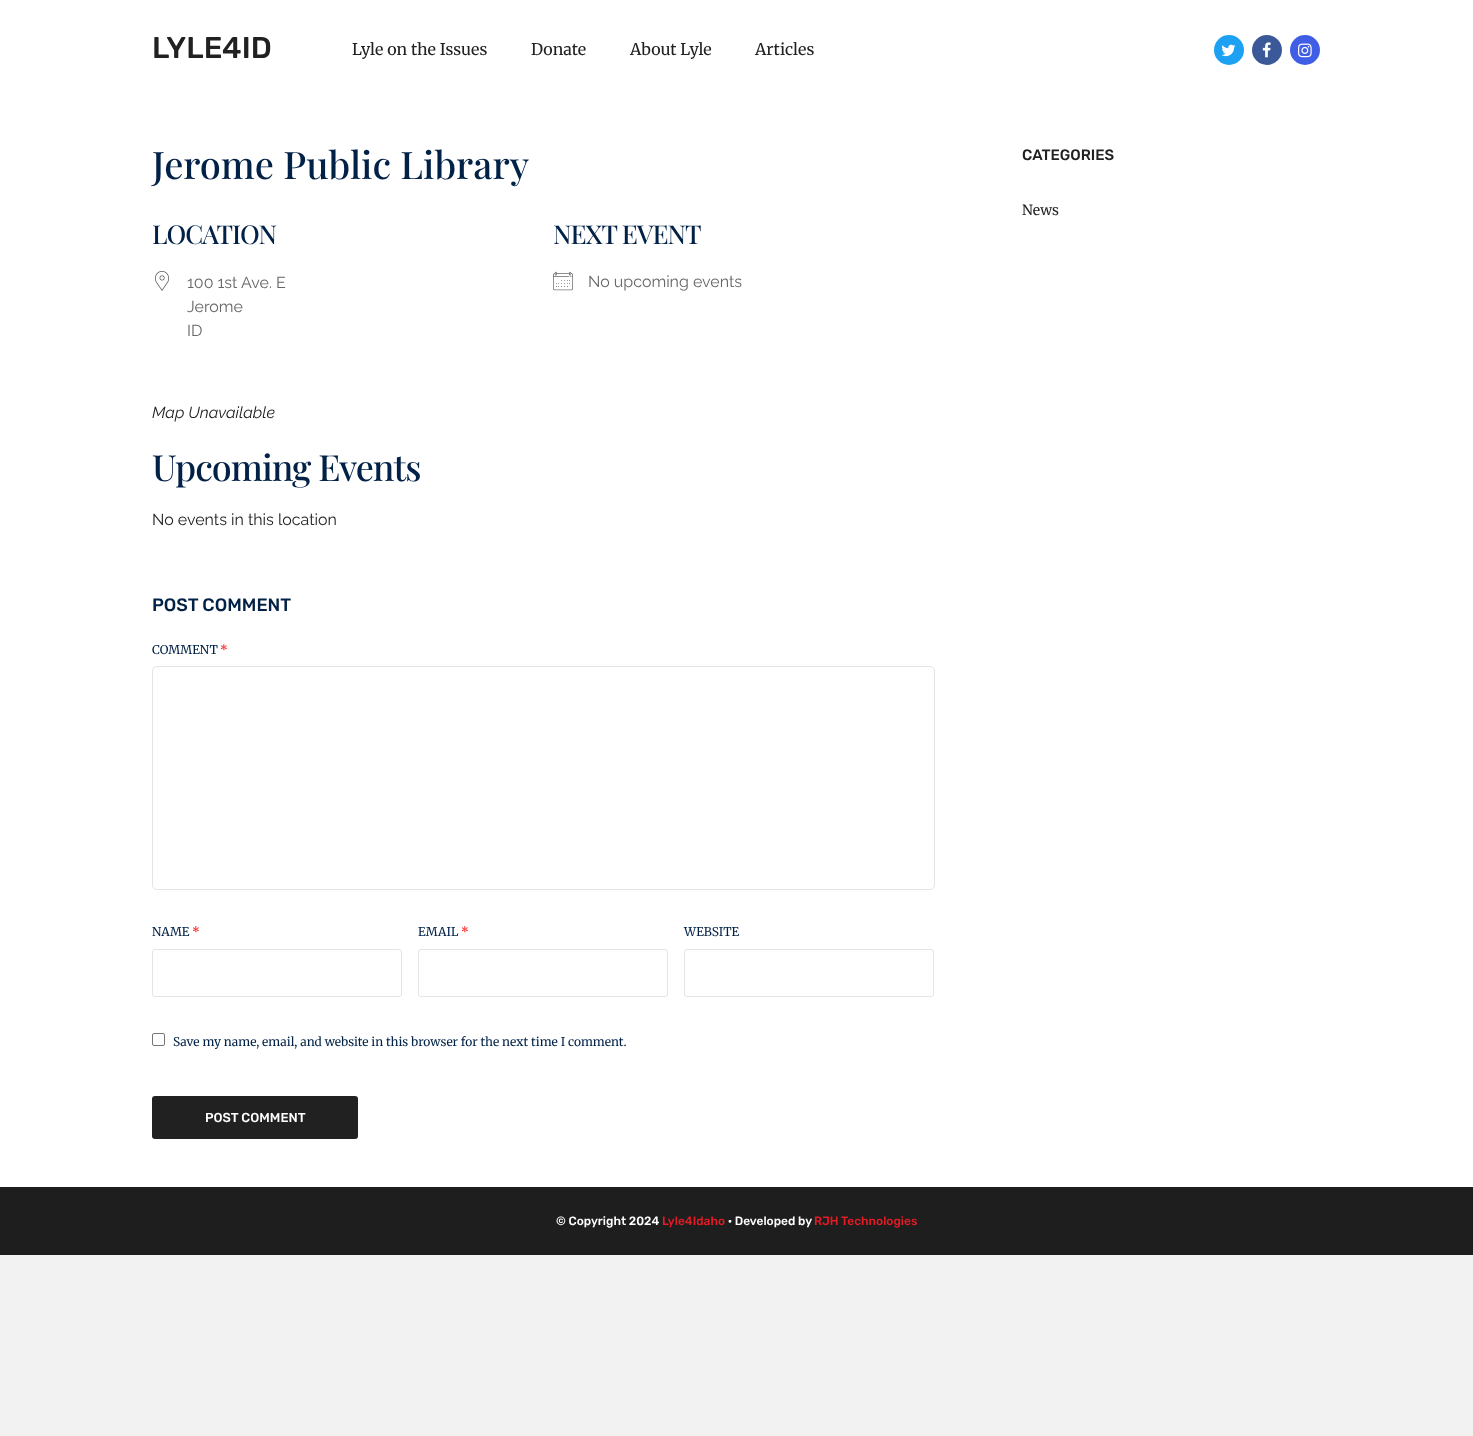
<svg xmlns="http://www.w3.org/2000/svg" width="1473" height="1436">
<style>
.a{font:500 30px Rubik;fill:#212121}
.b{font:16px Merriweather;fill:#212121}
.c{font:500 38px Playfair Display;fill:#022147}
.d{font:500 26px Playfair Display;letter-spacing:-1px;fill:#022147}
.e{font:16px Raleway;fill:#666}
.f{font:italic 16px Raleway;fill:#212121}
.g{font:500 36px Playfair Display;letter-spacing:-1px;fill:#022147}
.h{font:16px Raleway;fill:#212121}
.i{font:500 18px Rubik;fill:#022147}
.j{font:12px Merriweather;fill:#022147}
.k{font:12px Merriweather;fill:#f00}
.l{font:500 13px Rubik;fill:#fff}
.m{font:500 15px Rubik;fill:#212121}
.n{font:14px Merriweather;fill:#212121}
.o{font:500 12px Rubik;fill:#fff}
.p{font:500 12px Rubik;fill:#e31c25}
</style>
<rect width="100%" height="100%" fill="#f2f2f2"/>
<path fill="#fff" d="M0 0h1473v1187H0z"/>
<circle fill="#1da1f2" cx="1229" cy="50" r="15"/>
<image href="1.png" x="1221" y="44" width="15" height="13"/>
<circle fill="#3b5998" cx="1267" cy="50" r="15"/>
<image href="2.png" x="1262" y="42" width="9" height="16"/>
<circle fill="#405de6" cx="1305" cy="50" r="15"/>
<image href="3.png" x="1298" y="43" width="14" height="15"/>
<image href="4.png" x="155" y="271" width="14" height="20"/>
<image href="5.png" x="553" y="271" width="20" height="20"/>
<rect fill="none" stroke="#e2e4e8" x="152.5" y="666.5" width="782" height="223" rx="4.5"/>
<rect fill="none" stroke="#e2e4e8" x="152.5" y="949.5" width="249" height="47" rx="2.5"/>
<rect fill="none" stroke="#e2e4e8" x="418.5" y="949.5" width="249" height="47" rx="2.5"/>
<rect fill="none" stroke="#e2e4e8" x="684.5" y="949.5" width="249" height="47" rx="2.5"/>
<rect fill="none" stroke="#767676" x="152.5" y="1033.5" width="12" height="12" rx="1.5"/>
<rect fill="#212121" x="152" y="1096" width="206" height="43" rx="3"/>
<path fill="#1e1e1e" d="M0 1187h1473v68H0z"/>
<text class="a" x="152" y="58">LYLE4ID</text>
<text class="b" x="352" y="55">Lyle on the Issues</text>
<text class="b" x="531" y="55">Donate</text>
<text class="b" x="630" y="55">About Lyle</text>
<text class="b" x="755" y="55">Articles</text>
<text class="c" x="152" y="179">Jerome Public Library</text>
<text class="d" x="152" y="244">LOCATION</text>
<text class="e" x="187" y="288">100 1st Ave. E</text>
<text class="e" x="187" y="312">Jerome</text>
<text class="e" x="187" y="336">ID</text>
<text class="d" x="553" y="244">NEXT EVENT</text>
<text class="e" x="588" y="287">No upcoming events</text>
<text class="f" x="152" y="418">Map Unavailable</text>
<text class="g" x="152" y="481">Upcoming Events</text>
<text class="h" x="152" y="525">No events in this location</text>
<text class="i" x="152" y="611">POST COMMENT</text>
<text class="j" x="152" y="654">COMMENT</text>
<text class="k" x="220" y="654">*</text>
<text class="j" x="152" y="936">NAME</text>
<text class="k" x="192" y="936">*</text>
<text class="j" x="418" y="936">EMAIL</text>
<text class="k" x="461" y="936">*</text>
<text class="j" x="684" y="936">WEBSITE</text>
<text class="j" x="173" y="1046">Save my name, email, and website in this browser for the next time I comment.</text>
<text class="l" x="205" y="1122">POST COMMENT</text>
<text class="m" x="1022" y="160">CATEGORIES</text>
<text class="n" x="1022" y="215">News</text>
<text class="o" x="556" y="1225">© Copyright 2024</text>
<text class="p" x="662" y="1225">Lyle4Idaho</text>
<text class="o" x="728" y="1225">· Developed by</text>
<text class="p" x="814" y="1225">RJH Technologies</text>
</svg>
